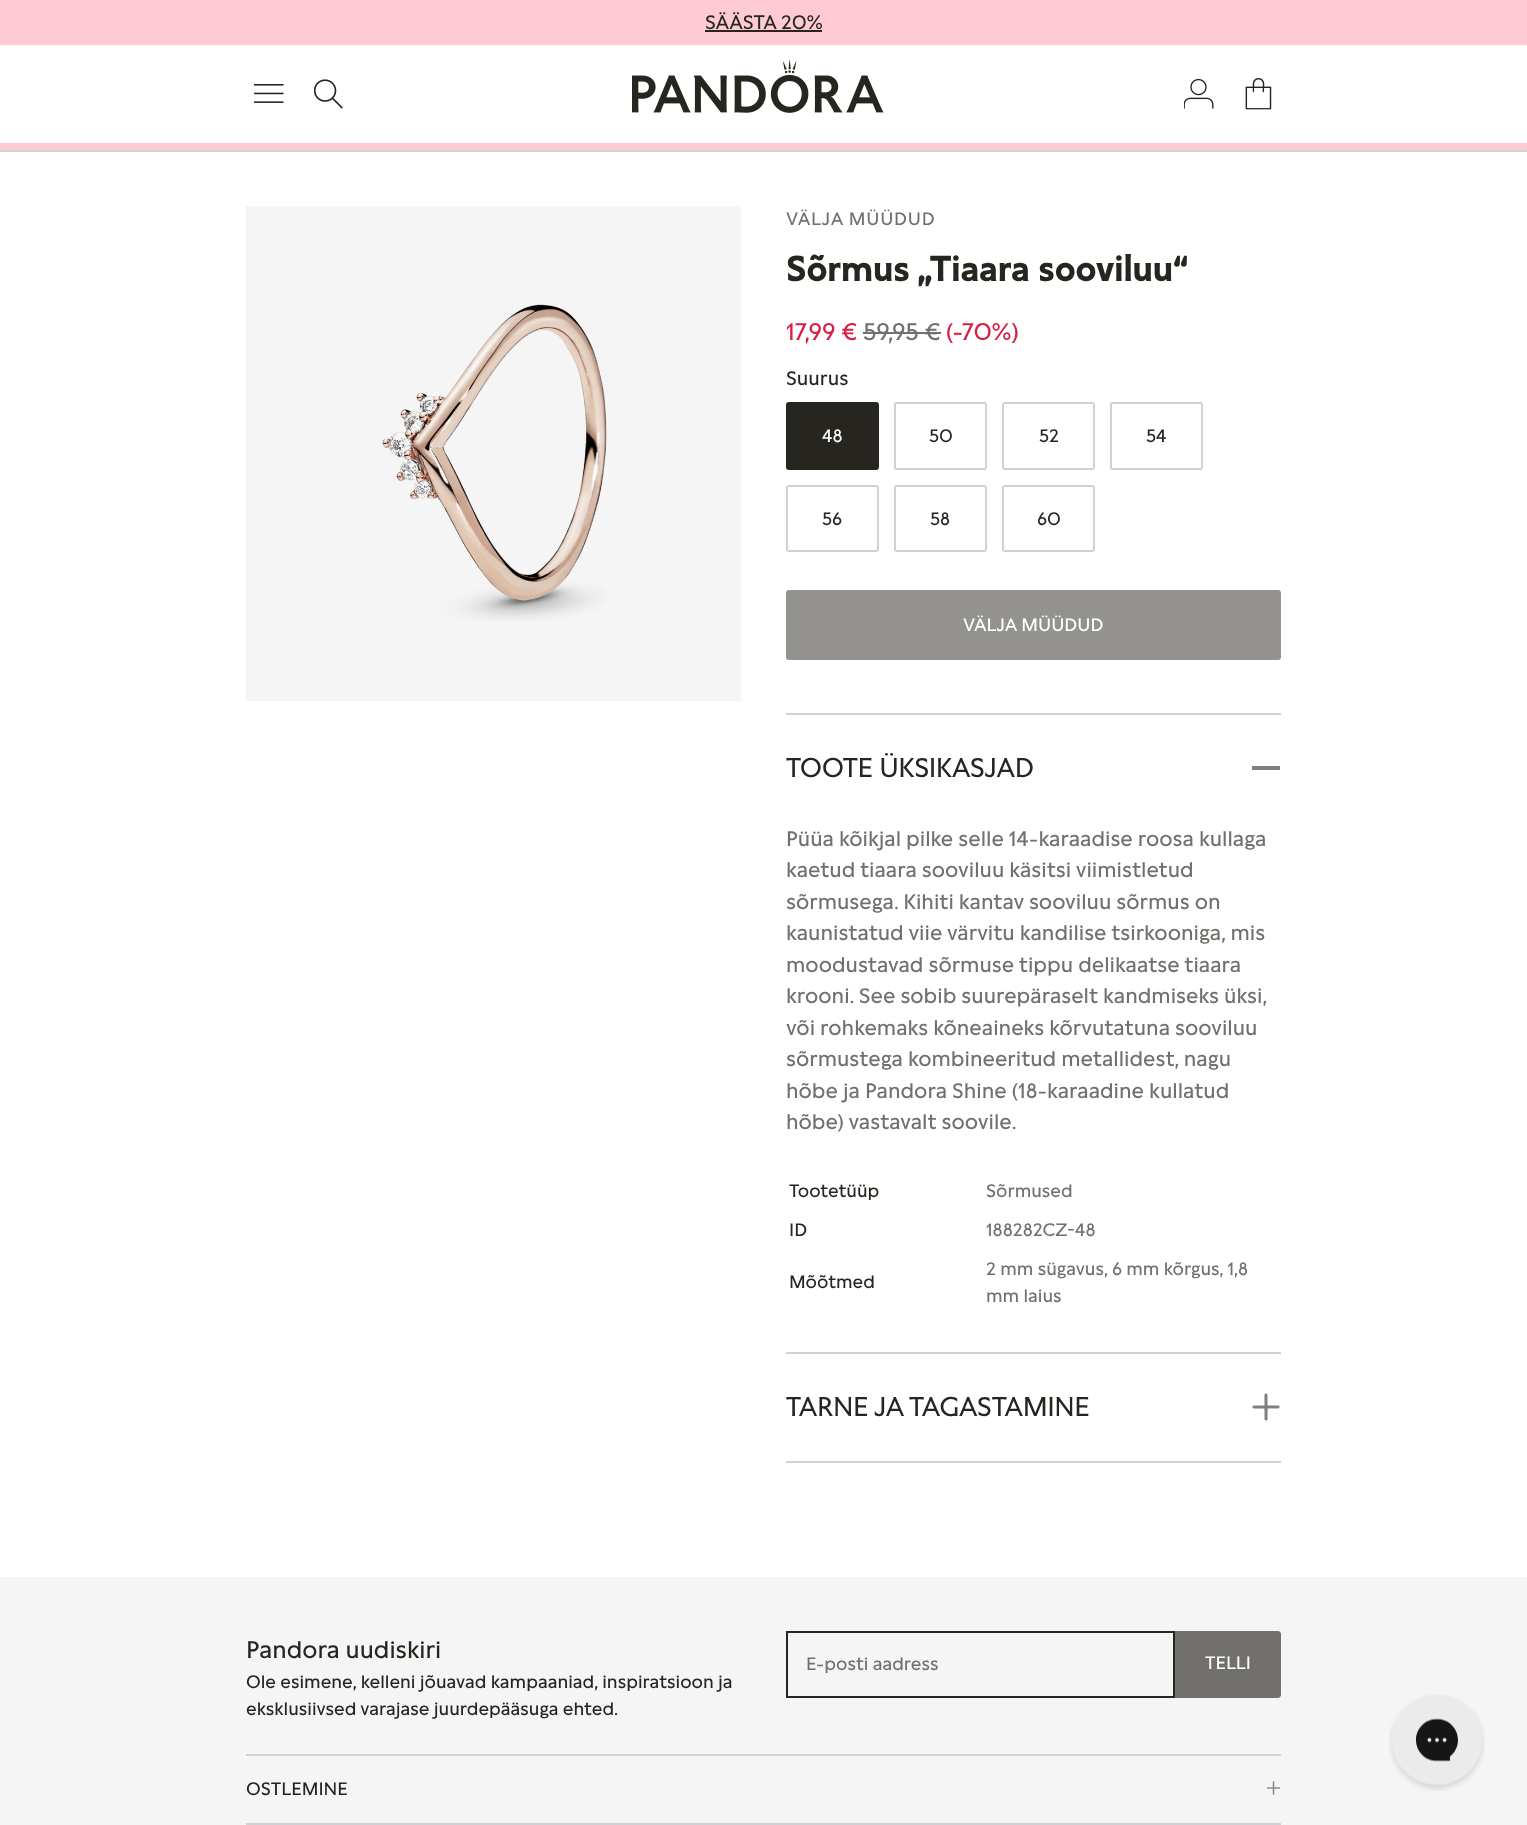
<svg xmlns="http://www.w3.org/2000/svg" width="1527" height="1825">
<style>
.a{font:19.5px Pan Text;fill:#27251f}
.b{font:18px Pan Text;letter-spacing:0.75px;fill:#71706c}
.c{font:bold 36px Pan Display;fill:#27251f}
.d{font:24px Pan Text;fill:#d91f46}
.e{font:24px Pan Text;fill:#71706c}
.f{font:18px Pan Text;fill:#fff}
.g{font:18px Pan Text;fill:#27251f}
.h{font:27px Pan Display;fill:#27251f}
.i{font:21px Pan Text;fill:#71706c}
.j{font:18px Pan Text;fill:#71706c}
.k{font:24px Pan Text;fill:#27251f}
</style>
<rect width="100%" height="100%" fill="#fff"/>
<path fill="#ffcad4" d="M0 0h1527v45H0z"/>
<path fill="#27251f" d="M705 30h117v2H705z"/>
<path fill="#d0d1d2" d="M0 150h1527v2H0z"/>
<path fill="#ffcad4" d="M0 143h1527v7H0z"/>
<image href="1.png" x="254" y="84" width="30" height="19"/>
<image href="2.png" x="314" y="79" width="29" height="30"/>
<image href="3.png" x="632" y="60" width="252" height="53"/>
<image href="4.png" x="1184" y="78" width="30" height="31"/>
<image href="5.png" x="1245" y="78" width="27" height="32"/>
<path fill="#f5f5f5" d="M246 206h495v495H246z"/>
<image href="6.png" x="382" y="304" width="225" height="317"/>
<path fill="#71706c" d="M863 332h78v2H863z"/>
<rect fill="#27251f" stroke="#27251f" stroke-width="2" x="787" y="403" width="91" height="66" rx="2"/>
<rect fill="none" stroke="#d0d1d2" stroke-width="2" x="895" y="403" width="91" height="66" rx="2"/>
<rect fill="none" stroke="#d0d1d2" stroke-width="2" x="1003" y="403" width="91" height="66" rx="2"/>
<rect fill="none" stroke="#d0d1d2" stroke-width="2" x="1111" y="403" width="91" height="66" rx="2"/>
<rect fill="none" stroke="#d0d1d2" stroke-width="2" x="787" y="486" width="91" height="65" rx="2"/>
<rect fill="none" stroke="#d0d1d2" stroke-width="2" x="895" y="486" width="91" height="65" rx="2"/>
<rect fill="none" stroke="#d0d1d2" stroke-width="2" x="1003" y="486" width="91" height="65" rx="2"/>
<rect fill="#93928f" x="786" y="590" width="495" height="70" rx="3"/>
<path fill="#d0d1d2" d="M786 713h495v2H786z"/>
<path fill="#d0d1d2" d="M786 1352h495v2H786z"/>
<path fill="#7f7f7f" d="M1252 766h28v4H1252z"/>
<path fill="#d0d1d2" d="M786 1461h495v2H786z"/>
<image href="7.png" x="1252" y="1393" width="28" height="28"/>
<path fill="#f5f5f5" d="M0 1577h1527v248H0z"/>
<path fill="#d0d1d2" d="M246 1754h1035v2H246z"/>
<path fill="none" stroke="#27251f" stroke-width="2" d="M787 1632h387v65H787z"/>
<path fill="#71706c" d="M1175 1631h103c1.5 0 3 1.5 3 3v61c0 1.5-1.5 3-3 3h-103z"/>
<path fill="#d0d1d2" d="M246 1823h1035v2H246z"/>
<image href="8.png" x="1266" y="1781" width="15" height="14"/>
<image href="9.png" x="1389" y="1694" width="96" height="97"/>
<text class="a" x="705" y="29">SÄÄSTA 20%</text>
<text class="b" x="786" y="225">VÄLJA MÜÜDUD</text>
<text class="c" x="786" y="281">Sõrmus „Tiaara sooviluu“</text>
<text class="d" x="786" y="340">17,99 €</text>
<text class="e" x="863" y="340">59,95 €</text>
<text class="d" x="946" y="340">(-70%)</text>
<text class="a" x="786" y="385">Suurus</text>
<text class="f" x="822" y="442">48</text>
<text class="g" x="929" y="442">50</text>
<text class="g" x="1039" y="442">52</text>
<text class="g" x="1146" y="442">54</text>
<text class="g" x="822" y="525">56</text>
<text class="g" x="930" y="525">58</text>
<text class="g" x="1037" y="525">60</text>
<text class="f" x="963" y="631">VÄLJA MÜÜDUD</text>
<text class="h" x="786" y="777">TOOTE ÜKSIKASJAD</text>
<text class="i" x="786" y="846">Püüa kõikjal pilke selle 14-karaadise roosa kullaga</text>
<text class="i" x="786" y="877">kaetud tiaara sooviluu käsitsi viimistletud</text>
<text class="i" x="786" y="909">sõrmusega. Kihiti kantav sooviluu sõrmus on</text>
<text class="i" x="786" y="940">kaunistatud viie värvitu kandilise tsirkooniga, mis</text>
<text class="i" x="786" y="972">moodustavad sõrmuse tippu delikaatse tiaara</text>
<text class="i" x="786" y="1003">krooni. See sobib suurepäraselt kandmiseks üksi,</text>
<text class="i" x="786" y="1035">või rohkemaks kõneaineks kõrvutatuna sooviluu</text>
<text class="i" x="786" y="1066">sõrmustega kombineeritud metallidest, nagu</text>
<text class="i" x="786" y="1098">hõbe ja Pandora Shine (18-karaadine kullatud</text>
<text class="i" x="786" y="1129">hõbe) vastavalt soovile.</text>
<text class="g" x="789" y="1197">Tootetüüp</text>
<text class="j" x="986" y="1197">Sõrmused</text>
<text class="g" x="789" y="1236">ID</text>
<text class="j" x="986" y="1236">188282CZ-48</text>
<text class="g" x="789" y="1288">Mõõtmed</text>
<text class="j" x="986" y="1275">2 mm sügavus, 6 mm kõrgus, 1,8</text>
<text class="j" x="986" y="1302">mm laius</text>
<text class="h" x="786" y="1416">TARNE JA TAGASTAMINE</text>
<text class="k" x="246" y="1658">Pandora uudiskiri</text>
<text class="g" x="246" y="1688">Ole esimene, kelleni jõuavad kampaaniad, inspiratsioon ja</text>
<text class="g" x="246" y="1715">eksklusiivsed varajase juurdepääsuga ehted.</text>
<text class="j" x="806" y="1670">E-posti aadress</text>
<text class="f" x="1205" y="1669">TELLI</text>
<text class="g" x="246" y="1795">OSTLEMINE</text>
</svg>
